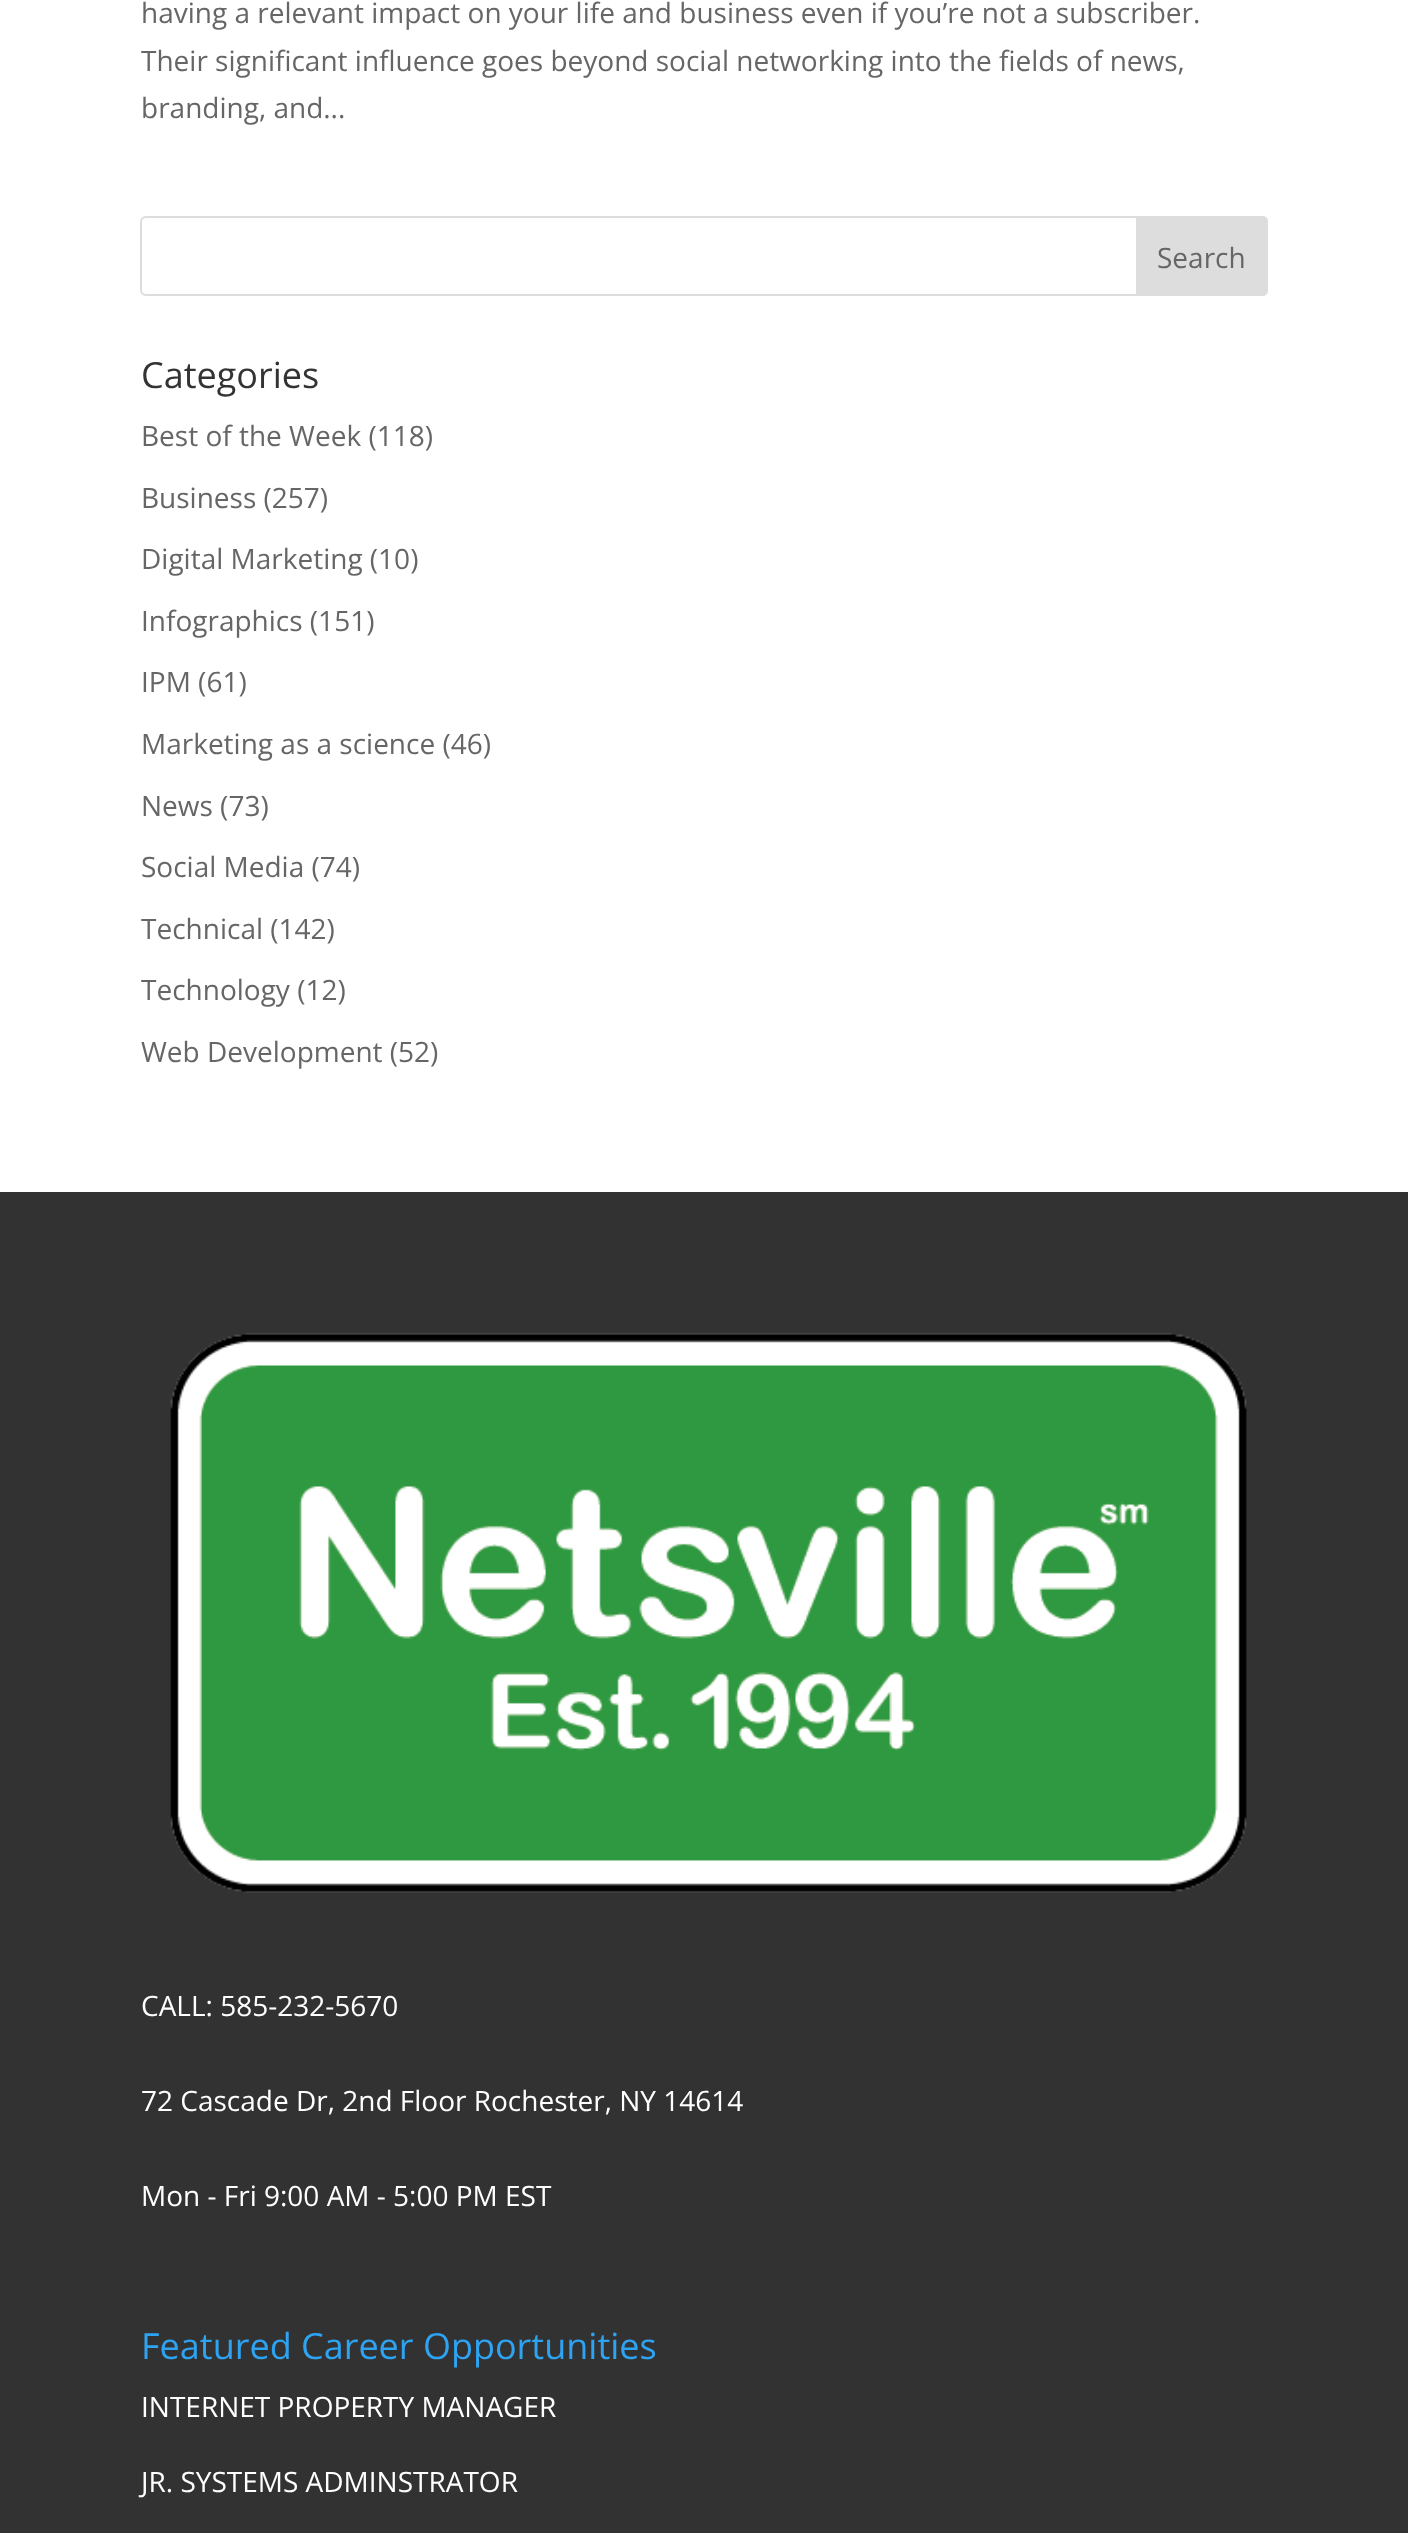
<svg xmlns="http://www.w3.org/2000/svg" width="1408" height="2533">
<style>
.a{font:28px Open Sans;fill:#666}
.b{font:36px Open Sans;fill:#333}
.c{font:28px Open Sans;fill:#fff}
.d{font:36px Open Sans;fill:#2ea3f2}
</style>
<rect width="100%" height="100%" fill="#fff"/>
<rect fill="none" stroke="#ddd" stroke-width="2" x="141" y="217" width="1126" height="78" rx="5"/>
<path fill="#ddd" stroke="#ddd" stroke-width="2" d="M1137 217h125c3 0 5 2 5 5v68c0 3-2 5-5 5h-125z"/>
<path fill="#323232" d="M0 1192h1408v1341H0z"/>
<image href="1.png" x="170" y="1332" width="1077" height="561"/>
<text class="a" x="141" y="23">having a relevant impact on your life and business even if you’re not a subscriber.</text>
<text class="a" x="141" y="71">Their significant influence goes beyond social networking into the fields of news,</text>
<text class="a" x="141" y="118">branding, and...</text>
<text class="a" x="1157" y="268">Search</text>
<text class="b" x="141" y="388">Categories</text>
<text class="a" x="141" y="446">Best of the Week (118)</text>
<text class="a" x="141" y="508">Business (257)</text>
<text class="a" x="141" y="569">Digital Marketing (10)</text>
<text class="a" x="141" y="631">Infographics (151)</text>
<text class="a" x="141" y="692">IPM (61)</text>
<text class="a" x="141" y="754">Marketing as a science (46)</text>
<text class="a" x="141" y="816">News (73)</text>
<text class="a" x="141" y="877">Social Media (74)</text>
<text class="a" x="141" y="939">Technical (142)</text>
<text class="a" x="141" y="1000">Technology (12)</text>
<text class="a" x="141" y="1062">Web Development (52)</text>
<text class="c" x="141" y="2016">CALL: 585-232-5670</text>
<text class="c" x="141" y="2111">72 Cascade Dr, 2nd Floor Rochester, NY 14614</text>
<text class="c" x="141" y="2206">Mon - Fri 9:00 AM - 5:00 PM EST</text>
<text class="d" x="141" y="2359">Featured Career Opportunities</text>
<text class="c" x="141" y="2417">INTERNET PROPERTY MANAGER</text>
<text class="c" x="141" y="2492">JR. SYSTEMS ADMINSTRATOR</text>
</svg>
